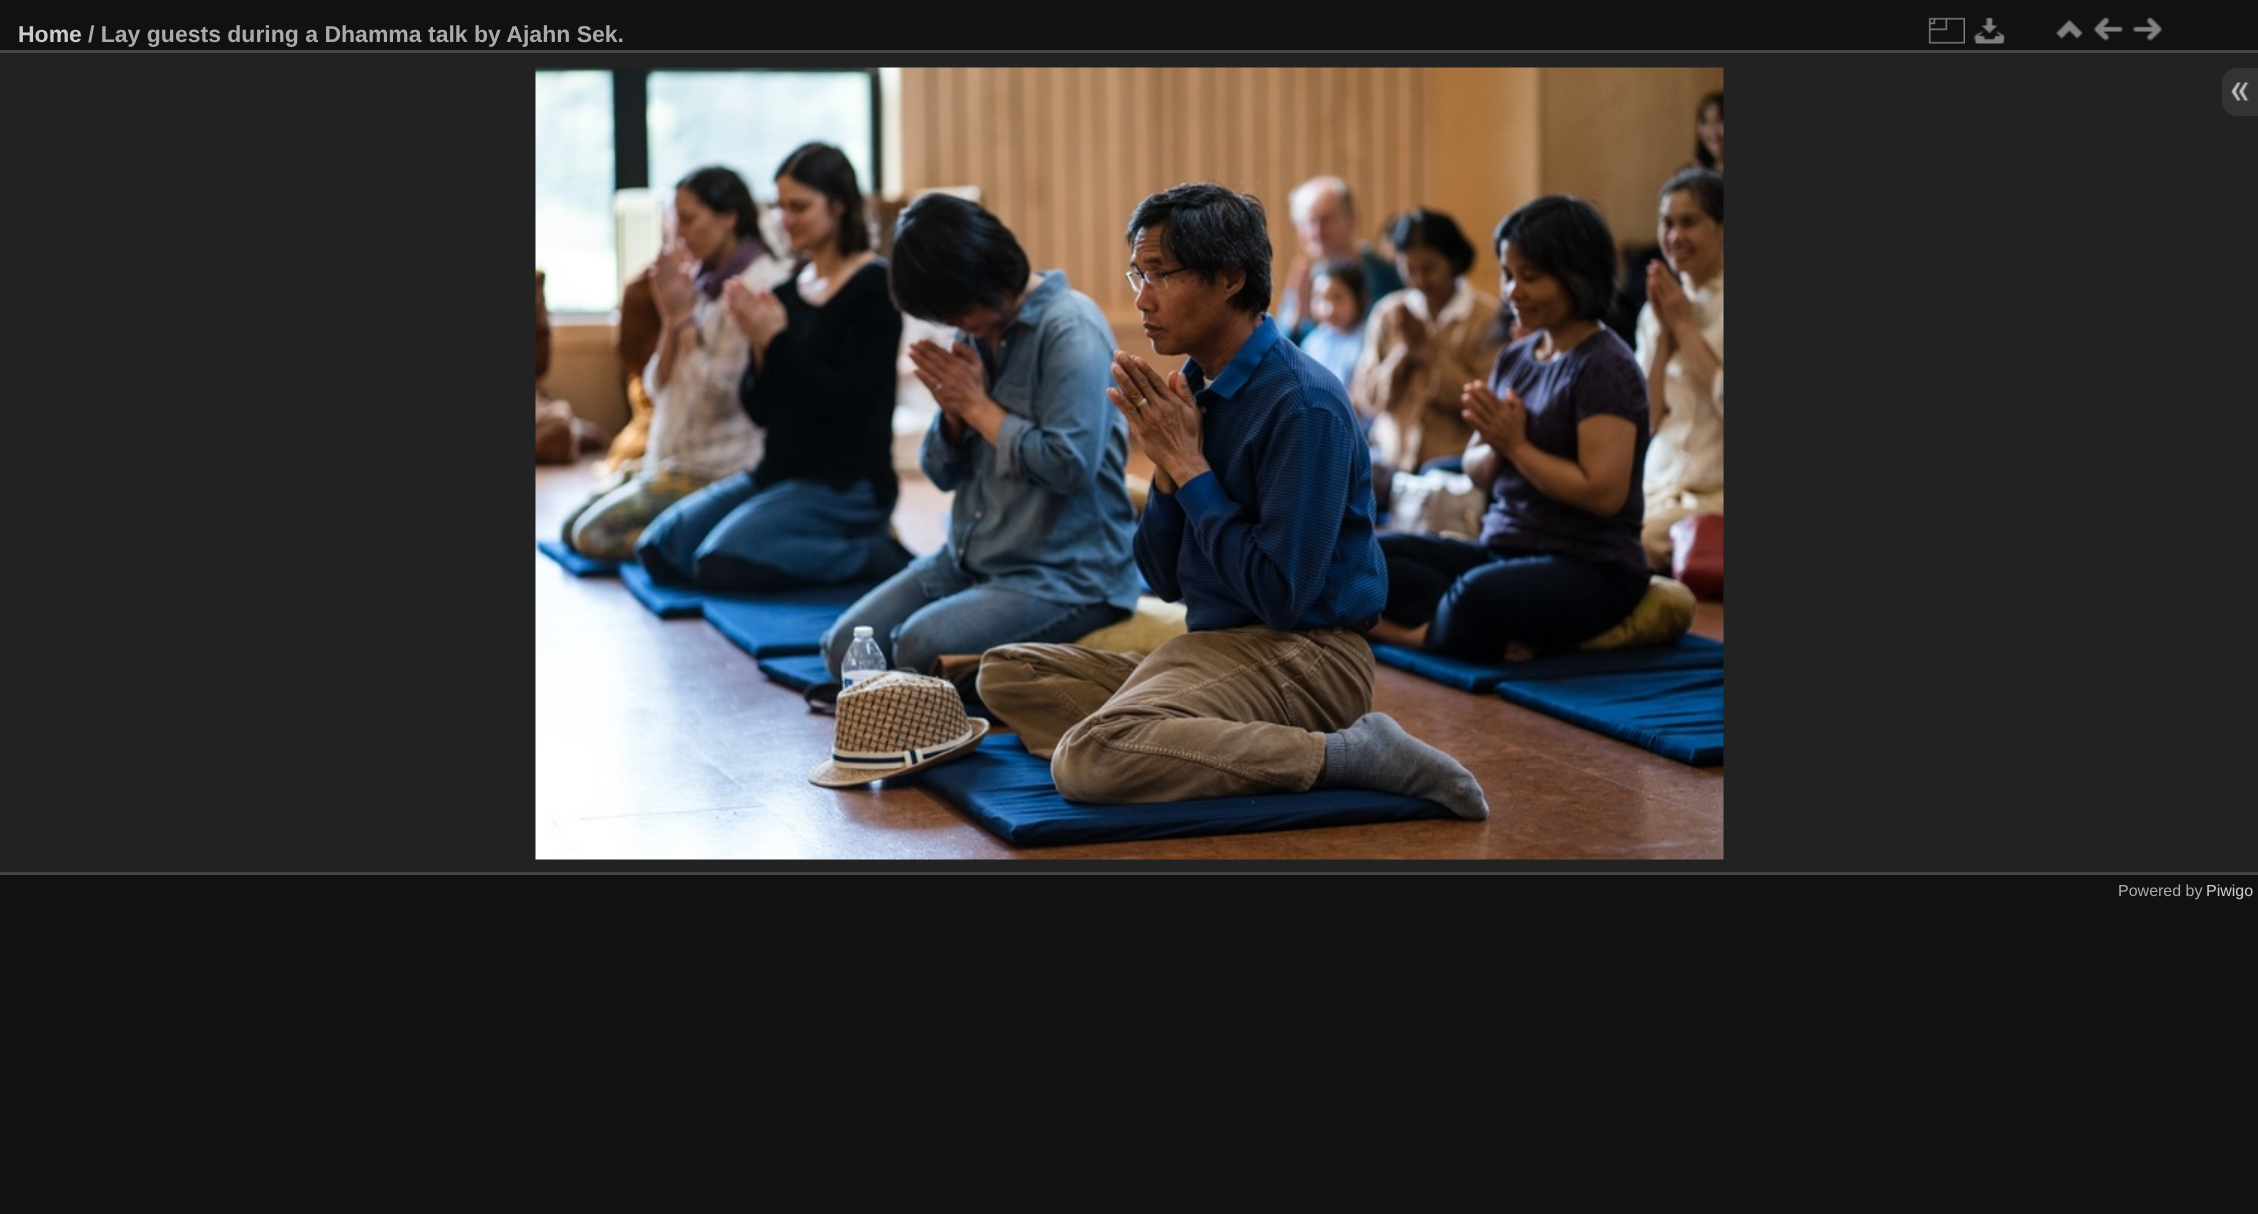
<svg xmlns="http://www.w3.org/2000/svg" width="2258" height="1214">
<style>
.a{font:bold 23px Liberation Sans;fill:#ccc}
.b{font:bold 23px Liberation Sans;fill:#aaa}
.c{font:16px Liberation Sans;fill:#aaa}
.d{font:16px Liberation Sans;fill:#ccc}
</style>
<rect width="100%" height="100%" fill="#111"/>
<path fill="#222" d="M0 53h2258v819H0z"/>
<path fill="#444" d="M0 872h2258v3H0z"/>
<path fill="#444" d="M0 50h2258v3H0z"/>
<image href="1.png" x="1928" y="17" width="37" height="27"/>
<image href="2.png" x="1973" y="17" width="33" height="27"/>
<image href="3.png" x="2056" y="19" width="27" height="21"/>
<image href="4.png" x="2093" y="17" width="30" height="24"/>
<image href="5.png" x="2132" y="17" width="30" height="24"/>
<image href="6.png" x="535" y="67" width="1189" height="793"/>
<path fill="#333" d="M2237 68h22v48h-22c-8.5 0-15-6.5-15-15v-18c0-8.5 6.5-15 15-15z"/>
<image href="7.png" x="2231" y="82" width="18" height="19"/>
<text class="a" x="18" y="42">Home</text>
<text class="b" x="88" y="42">/ Lay guests during a Dhamma talk by Ajahn Sek.</text>
<text class="c" x="2118" y="896">Powered by</text>
<text class="d" x="2206" y="896">Piwigo</text>
</svg>
